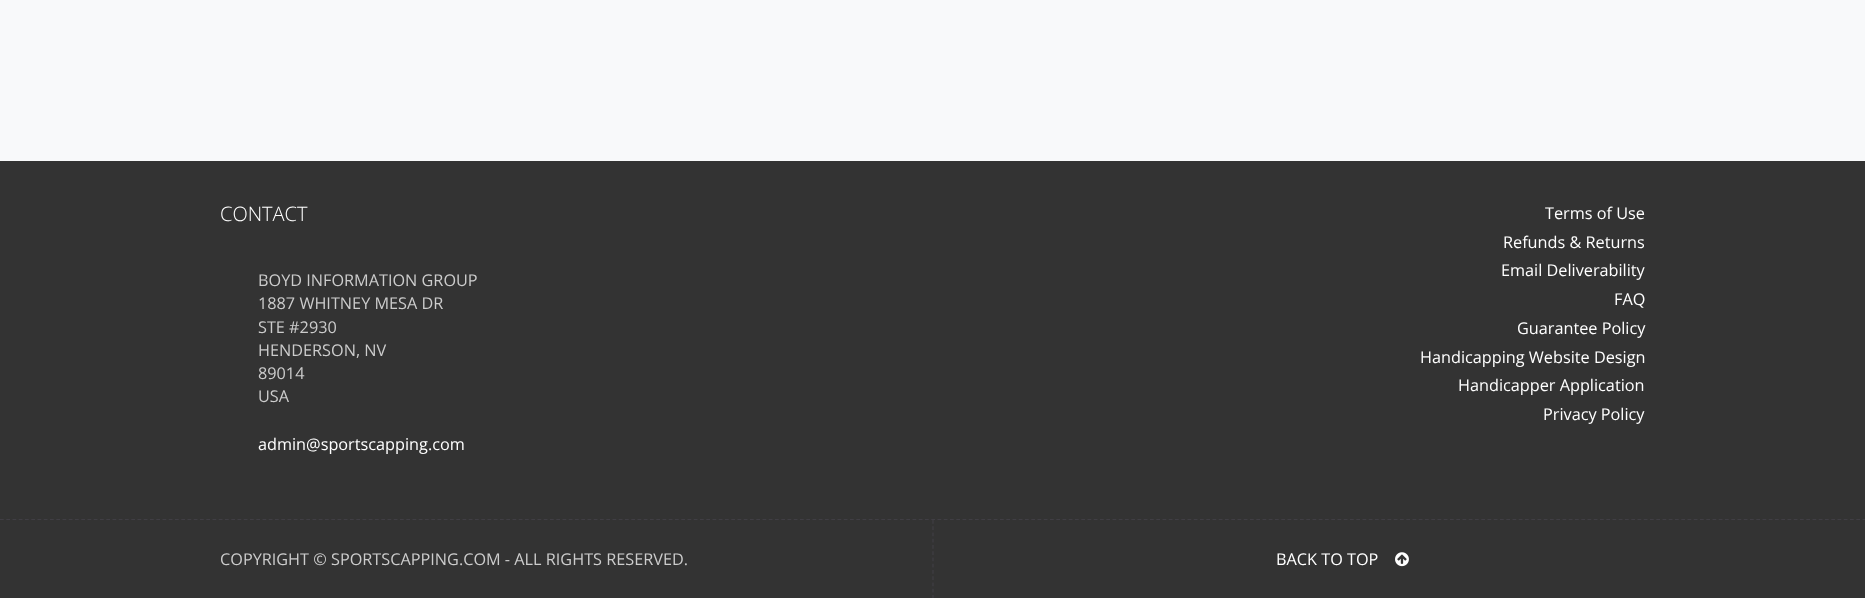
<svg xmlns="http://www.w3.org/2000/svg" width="1865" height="598">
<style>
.a{font:300 20px Open Sans;fill:#fff}
.b{font:16.25px Open Sans;fill:#ccc}
.c{font:16.25px Open Sans;fill:#fff}
</style>
<rect width="100%" height="100%" fill="#333"/>
<path fill="#f8f9fa" d="M0 0h1865v161H0z"/>
<path fill="none" stroke="#403e44" stroke-width="1.2" stroke-dasharray="3.75 2.5" d="M0 519.5h1865"/>
<path fill="none" stroke="#403e44" stroke-width="1.2" stroke-dasharray="3.75 2.5" d="M933 520v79"/>
<image href="1.png" x="1395" y="552" width="14" height="15"/>
<text class="a" x="220" y="221">CONTACT</text>
<text class="b" x="258" y="286">BOYD INFORMATION GROUP</text>
<text class="b" x="258" y="309">1887 WHITNEY MESA DR</text>
<text class="b" x="258" y="333">STE #2930</text>
<text class="b" x="258" y="356">HENDERSON, NV</text>
<text class="b" x="258" y="379">89014</text>
<text class="b" x="258" y="402">USA</text>
<text class="c" x="258" y="450">admin@sportscapping.com</text>
<text class="c" x="1545" y="219">Terms of Use</text>
<text class="c" x="1503" y="248">Refunds &amp; Returns</text>
<text class="c" x="1501" y="276">Email Deliverability</text>
<text class="c" x="1614" y="305">FAQ</text>
<text class="c" x="1517" y="334">Guarantee Policy</text>
<text class="c" x="1420" y="363">Handicapping Website Design</text>
<text class="c" x="1458" y="391">Handicapper Application</text>
<text class="c" x="1543" y="420">Privacy Policy</text>
<text class="b" x="220" y="565">COPYRIGHT © SPORTSCAPPING.COM - ALL RIGHTS RESERVED.</text>
<text class="c" x="1276" y="565">BACK TO TOP</text>
</svg>
